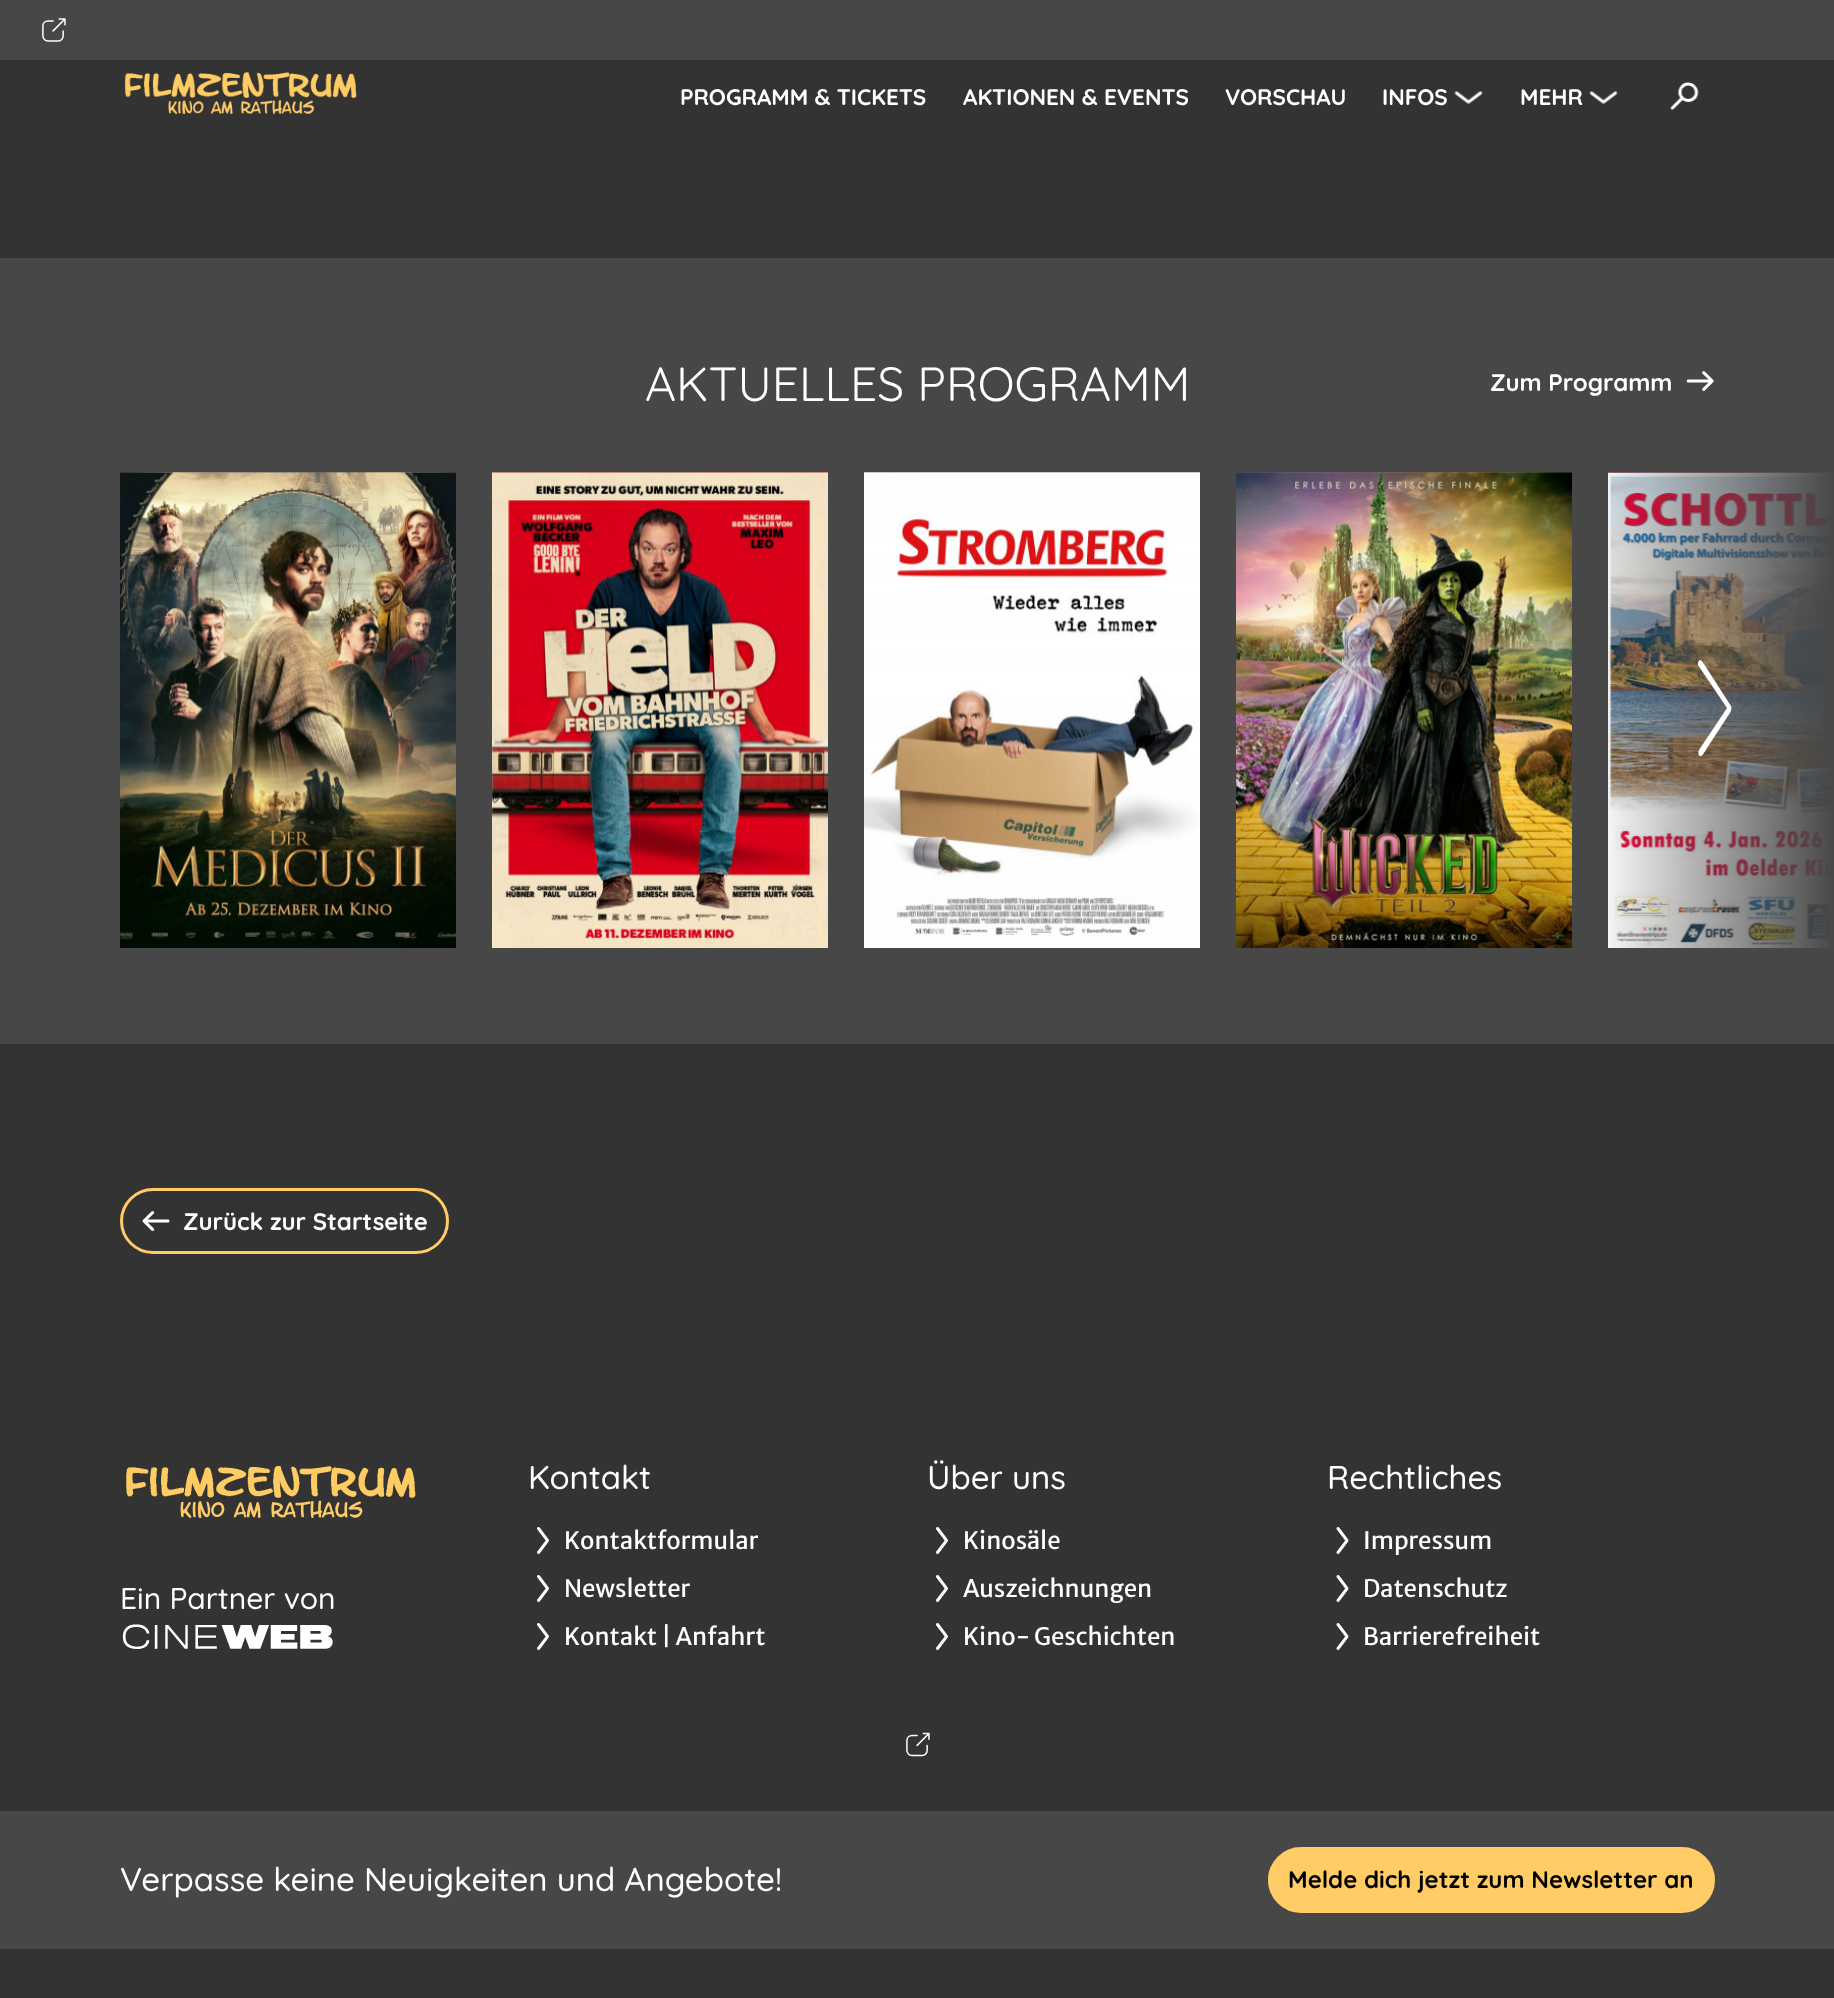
<svg xmlns="http://www.w3.org/2000/svg" width="1834" height="1998">
<style>
.a{font:300 22.5px Quicksand;fill:#fff}
.b{font:300 48px 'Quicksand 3';fill:#fff}
.c{font:300 24px Quicksand;fill:#fff}
.d{font:300 30px 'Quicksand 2';fill:#fff}
.e{font:300 33px 'Quicksand 2';fill:#fff}
.f{font:24px Merriweather Sans;fill:#fff}
.g{font:300 24px Quicksand;fill:#000}
</style>
<defs>
<linearGradient id="g1" gradientUnits="userSpaceOnUse" x1="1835" y1="710" x2="1595" y2="710"><stop offset="0" stop-color="#474747"/><stop offset="1" stop-color="#474747" stop-opacity="0"/></linearGradient>
</defs>
<rect width="100%" height="100%" fill="#333"/>
<path fill="#474747" d="M0 0h1834v60H0z"/>
<image href="1.png" x="42" y="18" width="24" height="24"/>
<image href="2.png" x="124" y="72" width="233" height="42"/>
<image href="3.png" x="1454" y="91" width="29" height="13"/>
<image href="3.png" x="1589" y="91" width="29" height="13"/>
<image href="4.png" x="1670" y="82" width="29" height="28"/>
<path fill="#474747" d="M0 258h1834v786H0z"/>
<image href="5.png" x="1686" y="371" width="28" height="20"/>
<image href="6.png" x="120" y="472" width="336" height="1"/>
<image href="7.png" x="120" y="472" width="336" height="476"/>
<image href="8.png" x="492" y="472" width="336" height="1"/>
<image href="9.png" x="492" y="472" width="336" height="476"/>
<image href="10.png" x="864" y="472" width="336" height="1"/>
<image href="11.png" x="864" y="472" width="336" height="476"/>
<image href="12.png" x="1236" y="472" width="336" height="1"/>
<image href="13.png" x="1236" y="472" width="336" height="476"/>
<image href="14.png" x="1608" y="472" width="226" height="1"/>
<image href="15.png" x="1608" y="473" width="226" height="475"/>
<path fill="url(#g1)" d="M1608 472h226v476H1608z"/>
<path fill="#fff" d="M1699 755c-1-1-1-3 0-5l28-42l-29-43c0-1 0-5 2-5l2 1l29 45c2 5-3 9-5 13l-19 29c-3 5-6 11-8 7z"/>
<rect fill="none" stroke="#fc6" stroke-width="3" x="121.5" y="1189.5" width="326" height="63" rx="31.5"/>
<image href="16.png" x="142" y="1211" width="28" height="20"/>
<image href="17.png" x="126" y="1466" width="290" height="52"/>
<image href="18.png" x="122" y="1624" width="211" height="25"/>
<image href="19.png" x="537" y="1527" width="12" height="27"/>
<image href="19.png" x="537" y="1575" width="12" height="27"/>
<image href="19.png" x="537" y="1623" width="12" height="27"/>
<image href="19.png" x="936" y="1527" width="12" height="27"/>
<image href="19.png" x="936" y="1575" width="12" height="27"/>
<image href="19.png" x="936" y="1623" width="12" height="27"/>
<image href="20.png" x="1336" y="1527" width="13" height="27"/>
<image href="20.png" x="1336" y="1575" width="13" height="27"/>
<image href="20.png" x="1336" y="1623" width="13" height="27"/>
<image href="21.png" x="906" y="1732" width="24" height="25"/>
<path fill="#474747" d="M0 1811h1834v138H0z"/>
<rect fill="#fc6" stroke="#fc6" stroke-width="3" x="1269.5" y="1848.5" width="444" height="63" rx="31.5"/>
<text class="a" x="680" y="105">PROGRAMM &amp; TICKETS</text>
<text class="a" x="963" y="105">AKTIONEN &amp; EVENTS</text>
<text class="a" x="1225" y="105">VORSCHAU</text>
<text class="a" x="1382" y="105">INFOS</text>
<text class="a" x="1520" y="105">MEHR</text>
<text class="b" x="645" y="401">AKTUELLES PROGRAMM</text>
<text class="c" x="1490" y="391">Zum Programm</text>
<text class="c" x="183" y="1230">Zurück zur Startseite</text>
<text class="d" x="120" y="1609">Ein Partner von</text>
<text class="e" x="528" y="1489">Kontakt</text>
<text class="f" x="564" y="1549">Kontaktformular</text>
<text class="f" x="564" y="1597">Newsletter</text>
<text class="f" x="564" y="1645">Kontakt | Anfahrt</text>
<text class="e" x="927" y="1489">Über uns</text>
<text class="f" x="963" y="1549">Kinosäle</text>
<text class="f" x="963" y="1597">Auszeichnungen</text>
<text class="f" x="963" y="1645">Kino- Geschichten</text>
<text class="e" x="1327" y="1489">Rechtliches</text>
<text class="f" x="1363" y="1549">Impressum</text>
<text class="f" x="1363" y="1597">Datenschutz</text>
<text class="f" x="1363" y="1645">Barrierefreiheit</text>
<text class="e" x="120" y="1891">Verpasse keine Neuigkeiten und Angebote!</text>
<text class="g" x="1288" y="1888">Melde dich jetzt zum Newsletter an</text>
</svg>
